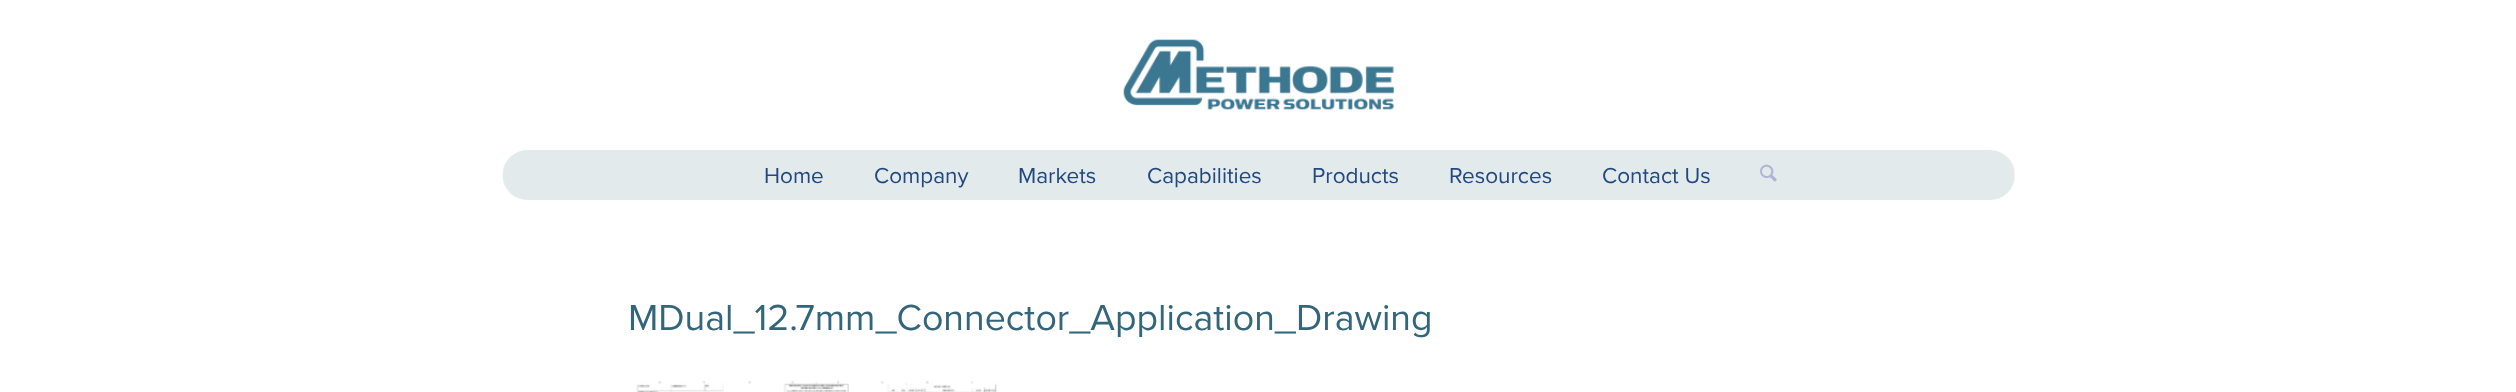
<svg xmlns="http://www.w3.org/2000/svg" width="2516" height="392">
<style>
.a{font:22.5px Proxima Nova;fill:#22487f}
.b{font:37.5px Proxima Nova;fill:#33657b}
</style>
<rect width="100%" height="100%" fill="#fff"/>
<image href="1.png" x="1123" y="39" width="271" height="71"/>
<image href="2.png" x="502" y="150" width="1513" height="50"/>
<image href="3.png" x="1760" y="164" width="17" height="18"/>
<image href="4.png" x="636" y="381" width="361" height="11"/>
<text class="a" x="764" y="183">Home</text>
<text class="a" x="874" y="183">Company</text>
<text class="a" x="1018" y="183">Markets</text>
<text class="a" x="1147" y="183">Capabilities</text>
<text class="a" x="1312" y="183">Products</text>
<text class="a" x="1449" y="183">Resources</text>
<text class="a" x="1602" y="183">Contact Us</text>
<text class="b" x="628" y="330">MDual_12.7mm_Connector_Application_Drawing</text>
</svg>
